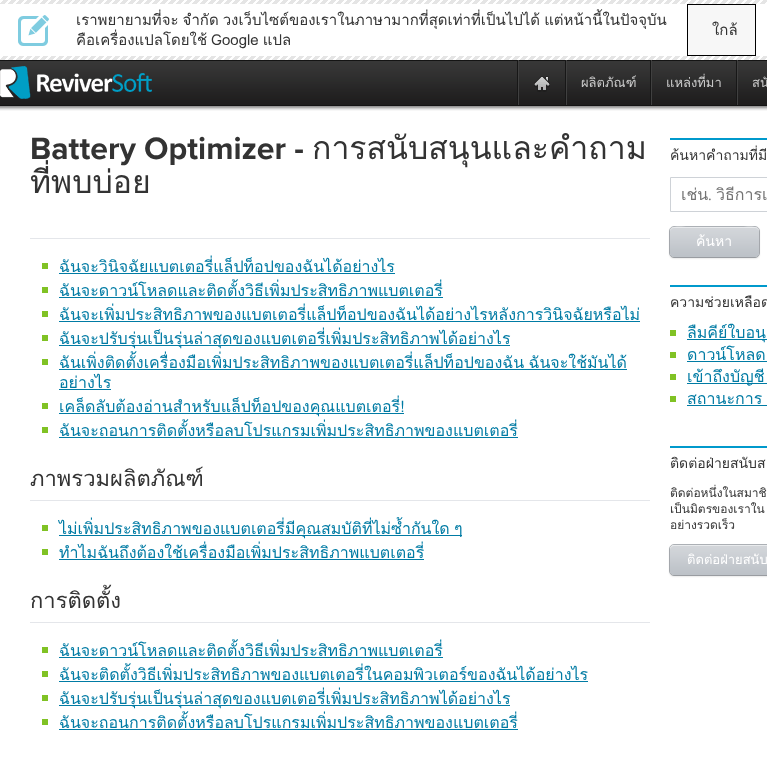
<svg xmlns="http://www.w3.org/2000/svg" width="767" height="768">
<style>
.a{font:15px Loma;fill:#333}
.b{font:13px Loma;fill:#ccc}
.c{font:32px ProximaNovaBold;fill:#333}
.d{font:32px Loma;fill:#333}
.e{font:16px Loma;fill:#007ba4}
.f{font:22px Loma;fill:#333}
.g{font:14px Loma;fill:#333}
.h{font:16px Loma;fill:#747474}
.i{font:16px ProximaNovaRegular;fill:#747474}
.j{font:14px Loma;fill:#fff}
.k{font:12px Loma;fill:#333}
.l{font:13px Loma;fill:#fff}
</style>
<rect width="100%" height="100%" fill="#fff"/>
<image href="1.png" x="0" y="60" width="767" height="51"/>
<image href="2.png" x="0" y="0" width="767" height="4"/>
<image href="3.png" x="18" y="15" width="31" height="31"/>
<path fill="#f7f7f7" d="M688 5h67v50H688z"/>
<path fill="#000" d="M687 4h69v1H687z"/>
<path fill="#000" d="M755 4h1v52H755z"/>
<path fill="#000" d="M687 55h69v1H687z"/>
<path fill="#000" d="M687 4h1v52H687z"/>
<image href="2.png" x="0" y="56" width="767" height="4"/>
<image href="4.png" x="0" y="66" width="152" height="33"/>
<path fill="#171717" d="M517 60h1v45H517z"/>
<path fill="#171717" d="M565 60h1v45H565z"/>
<path fill="#404040" d="M518 60h1v45H518z"/>
<image href="5.png" x="534" y="76" width="16" height="16"/>
<path fill="#171717" d="M650 60h1v45H650z"/>
<path fill="#404040" d="M566 60h1v45H566z"/>
<path fill="#171717" d="M736 60h1v45H736z"/>
<path fill="#404040" d="M651 60h1v45H651z"/>
<path fill="#404040" d="M737 60h1v45H737z"/>
<path fill="#e4e6ea" d="M30 238h620v1H30z"/>
<path fill="#80c224" d="M42 263h6v6H42z"/>
<path fill="#007ba4" d="M59 273h336v1H59z"/>
<path fill="#80c224" d="M42 287h6v6H42z"/>
<path fill="#007ba4" d="M59 297h384v1H59z"/>
<path fill="#80c224" d="M42 311h6v6H42z"/>
<path fill="#007ba4" d="M59 321h581v1H59z"/>
<path fill="#80c224" d="M42 335h6v6H42z"/>
<path fill="#007ba4" d="M59 345h451v1H59z"/>
<path fill="#80c224" d="M42 359h6v6H42z"/>
<path fill="#007ba4" d="M59 369h568v1H59z"/>
<path fill="#007ba4" d="M59 389h52v1H59z"/>
<path fill="#80c224" d="M42 403h6v6H42z"/>
<path fill="#007ba4" d="M59 413h345v1H59z"/>
<path fill="#80c224" d="M42 427h6v6H42z"/>
<path fill="#007ba4" d="M59 437h459v1H59z"/>
<path fill="#e4e6ea" d="M30 500h620v1H30z"/>
<path fill="#80c224" d="M42 525h6v6H42z"/>
<path fill="#007ba4" d="M59 535h403v1H59z"/>
<path fill="#80c224" d="M42 549h6v6H42z"/>
<path fill="#007ba4" d="M59 559h365v1H59z"/>
<path fill="#e4e6ea" d="M30 622h620v1H30z"/>
<path fill="#80c224" d="M42 647h6v6H42z"/>
<path fill="#007ba4" d="M59 657h384v1H59z"/>
<path fill="#80c224" d="M42 671h6v6H42z"/>
<path fill="#007ba4" d="M59 681h529v1H59z"/>
<path fill="#80c224" d="M42 695h6v6H42z"/>
<path fill="#007ba4" d="M59 705h451v1H59z"/>
<path fill="#80c224" d="M42 719h6v6H42z"/>
<path fill="#007ba4" d="M59 729h459v1H59z"/>
<path fill="#09c" d="M670 138h97v2H670z"/>
<path fill="none" stroke="#ced2d7" d="M670.5 177.5h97v34H670.5z"/>
<rect fill="none" stroke="#afb3b8" x="669.5" y="226.5" width="90" height="31" rx="4.5"/>
<rect fill="#00000030" filter="blur(1px)" x="670" y="228" width="89" height="30" rx="4"/>
<image href="6.png" x="670" y="227" width="89" height="30"/>
<path fill="#ffffff80" d="M674 228h81c2 0 4 2 4 4c0-8-13-5-17-5h-54c-5 0-18-3-18 5c0-2 2-4 4-4z"/>
<path fill="#09c" d="M670 285h97v2H670z"/>
<path fill="#80c224" d="M670 330h6v6H670z"/>
<path fill="#007ba4" d="M687 339h80v1H687z"/>
<path fill="#80c224" d="M670 352h6v6H670z"/>
<path fill="#007ba4" d="M687 361h80v1H687z"/>
<path fill="#80c224" d="M670 374h6v6H670z"/>
<path fill="#007ba4" d="M687 383h80v1H687z"/>
<path fill="#80c224" d="M670 396h6v6H670z"/>
<path fill="#007ba4" d="M687 405h80v1H687z"/>
<path fill="#09c" d="M670 446h97v2H670z"/>
<rect fill="none" stroke="#afb3b8" x="669.5" y="544.5" width="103" height="31" rx="4.5"/>
<rect fill="#00000030" filter="blur(1px)" x="670" y="546" width="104" height="30" rx="4"/>
<image href="7.png" x="670" y="545" width="97" height="30"/>
<path fill="#ffffff80" d="M674 546h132c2 0 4 2 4 4v-1c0-2-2-4-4-4h-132c-2 0-4 2-4 4v1c0-2 2-4 4-4z"/>
<text class="a" x="76" y="25" word-spacing="-1">เราพยายามที่จะ จำกัด วงเว็บไซต์ของเราในภาษามากที่สุดเท่าที่เป็นไปได้ แต่หน้านี้ในปัจจุบัน</text>
<text class="a" x="76" y="45" word-spacing="-1">คือเครื่องแปลโดยใช้ Google แปล</text>
<text class="a" x="712" y="35">ใกล้</text>
<text class="b" x="581" y="87">ผลิตภัณฑ์</text>
<text class="b" x="666" y="87">แหล่งที่มา</text>
<text class="b" x="752" y="87">สนั</text>
<text class="c" x="30" y="159">Battery Optimizer -</text>
<text class="d" x="312" y="159">การสนับสนุนและคำถาม</text>
<text class="d" x="30" y="193">ที่พบบ่อย</text>
<text class="e" x="59" y="272">ฉันจะวินิจฉัยแบตเตอรี่แล็ปท็อปของฉันได้อย่างไร</text>
<text class="e" x="59" y="296">ฉันจะดาวน์โหลดและติดตั้งวิธีเพิ่มประสิทธิภาพแบตเตอรี่</text>
<text class="e" x="59" y="320">ฉันจะเพิ่มประสิทธิภาพของแบตเตอรี่แล็ปท็อปของฉันได้อย่างไรหลังการวินิจฉัยหรือไม่</text>
<text class="e" x="59" y="344">ฉันจะปรับรุ่นเป็นรุ่นล่าสุดของแบตเตอรี่เพิ่มประสิทธิภาพได้อย่างไร</text>
<text class="e" x="59" y="368" word-spacing="-1">ฉันเพิ่งติดตั้งเครื่องมือเพิ่มประสิทธิภาพของแบตเตอรี่แล็ปท็อปของฉัน ฉันจะใช้มันได้</text>
<text class="e" x="59" y="388">อย่างไร</text>
<text class="e" x="59" y="412">เคล็ดลับต้องอ่านสำหรับแล็ปท็อปของคุณแบตเตอรี่!</text>
<text class="e" x="59" y="436">ฉันจะถอนการติดตั้งหรือลบโปรแกรมเพิ่มประสิทธิภาพของแบตเตอรี่</text>
<text class="f" x="30" y="486">ภาพรวมผลิตภัณฑ์</text>
<text class="e" x="59" y="534" word-spacing="-1">ไม่เพิ่มประสิทธิภาพของแบตเตอรี่มีคุณสมบัติที่ไม่ซ้ำกันใด ๆ</text>
<text class="e" x="59" y="558">ทำไมฉันถึงต้องใช้เครื่องมือเพิ่มประสิทธิภาพแบตเตอรี่</text>
<text class="f" x="30" y="608">การติดตั้ง</text>
<text class="e" x="59" y="656">ฉันจะดาวน์โหลดและติดตั้งวิธีเพิ่มประสิทธิภาพแบตเตอรี่</text>
<text class="e" x="59" y="680">ฉันจะติดตั้งวิธีเพิ่มประสิทธิภาพของแบตเตอรี่ในคอมพิวเตอร์ของฉันได้อย่างไร</text>
<text class="e" x="59" y="704">ฉันจะปรับรุ่นเป็นรุ่นล่าสุดของแบตเตอรี่เพิ่มประสิทธิภาพได้อย่างไร</text>
<text class="e" x="59" y="728">ฉันจะถอนการติดตั้งหรือลบโปรแกรมเพิ่มประสิทธิภาพของแบตเตอรี่</text>
<text class="g" x="670" y="160">ค้นหาคำถามที่มี</text>
<text class="h" x="681" y="200">เช่น</text>
<text class="i" x="708" y="200">.</text>
<text class="h" x="716" y="200">วิธีการเ</text>
<text class="j" x="696" y="246">ค้นหา</text>
<text class="g" x="670" y="307">ความช่วยเหลือด่</text>
<text class="e" x="687" y="338">ลืมคีย์ใบอนุ</text>
<text class="e" x="687" y="360">ดาวน์โหลด</text>
<text class="e" x="687" y="382">เข้าถึงบัญชี</text>
<text class="e" x="687" y="404" word-spacing="-1">สถานะการ</text>
<text class="g" x="670" y="468">ติดต่อฝ่ายสนับส</text>
<text class="k" x="670" y="497">ติดต่อหนึ่งในสมาชิ</text>
<text class="k" x="670" y="513">เป็นมิตรของเราใน</text>
<text class="k" x="670" y="529">อย่างรวดเร็ว</text>
<text class="l" x="687" y="564">ติดต่อฝ่ายสนับ</text>
</svg>
